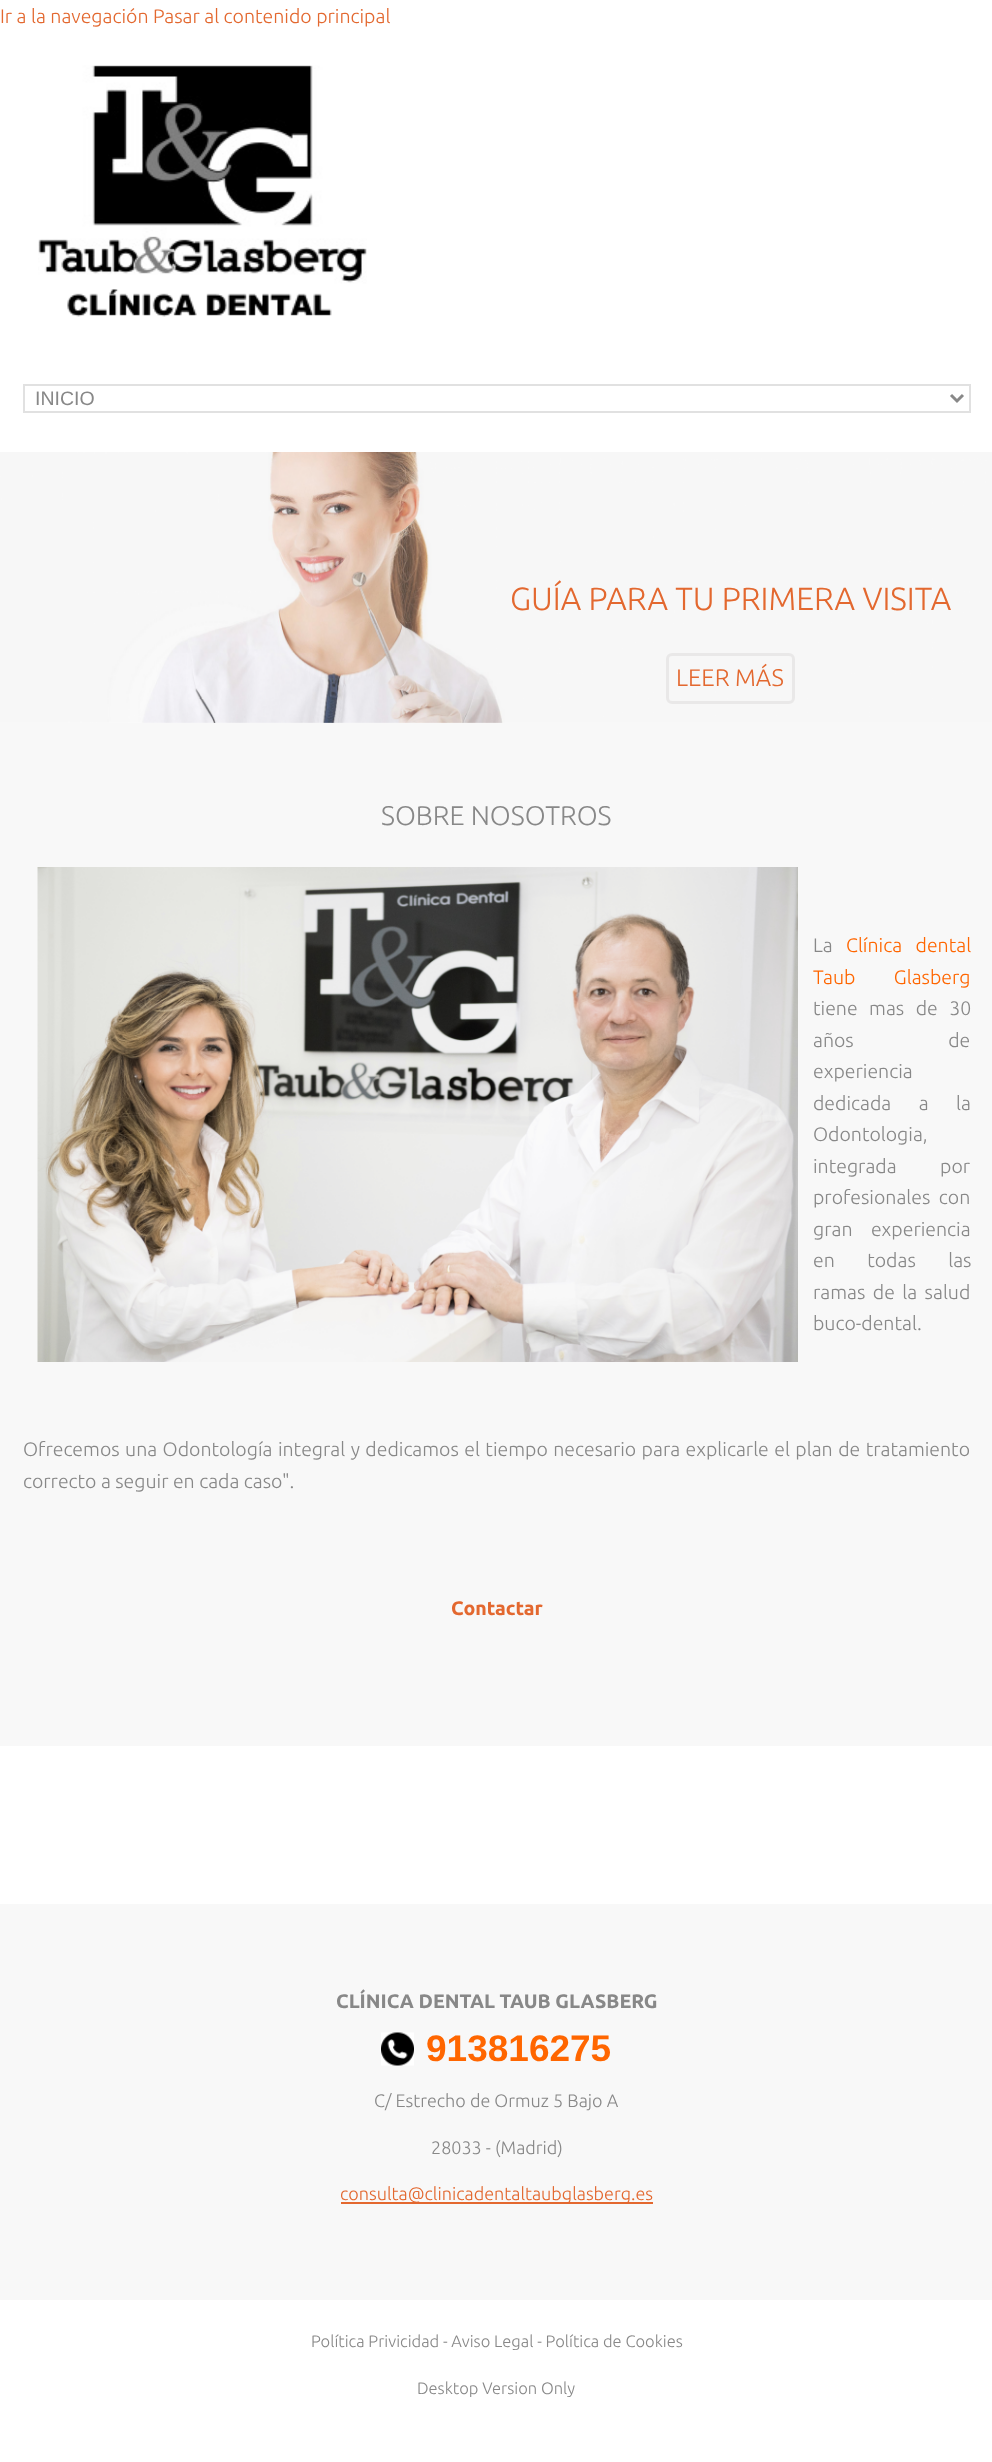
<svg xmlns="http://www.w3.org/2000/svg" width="992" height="2462">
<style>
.a{font:300 19.5px Ubuntu;fill:#e3682f}
.b{font:19.5px Liberation Sans;fill:#888}
.c{font:300 32px Ubuntu;fill:#e3682f}
.d{font:300 24px Ubuntu;fill:#e3682f}
.e{font:300 27px Ubuntu;fill:#888}
.f{font:300 19.5px Ubuntu;fill:#888}
.g{font:300 19.5px Ubuntu;fill:#f60}
.h{font:bold 19.5px Ubuntu;fill:#e3682f}
.i{font:bold 19.5px Ubuntu;fill:#888}
.j{font:bold 37px Liberation Sans;fill:#f60}
.k{font:300 18px Ubuntu;fill:#888}
.l{font:300 18px Ubuntu;fill:#e3682f}
.m{font:300 16.5px Ubuntu;fill:#888}
</style>
<rect width="100%" height="100%" fill="#fff"/>
<image href="1.png" x="38" y="65" width="329" height="252"/>
<path fill="none" stroke="#e1e1e1" stroke-width="2" d="M24 385h946v27H24z"/>
<path fill="none" stroke="#888" stroke-width="3" d="M951 395l6 6l6-6"/>
<image href="2.png" x="0" y="452" width="992" height="271"/>
<rect fill="none" stroke="#e9e8e8" stroke-width="3" x="667.5" y="654.5" width="126" height="48" rx="4.5"/>
<path fill="#f8f8f8" d="M0 723h992v1023H0z"/>
<image href="3.png" x="37" y="867" width="761" height="495"/>
<path fill="#f8f8f8" d="M0 1904h992v396H0z"/>
<image href="4.png" x="381" y="2032" width="33" height="34"/>
<path fill="#e3682f" d="M341 2202h312v2H341z"/>
<text class="a" x="0" y="23">Ir a la navegación Pasar al contenido principal</text>
<text class="b" x="35" y="405">INICIO</text>
<text class="c" x="510" y="610">GUÍA PARA TU PRIMERA VISITA</text>
<text class="d" x="676" y="686">LEER MÁS</text>
<text class="e" x="381" y="825">SOBRE NOSOTROS</text>
<text class="f" x="813" y="952">La</text>
<text class="g" x="846" y="952" word-spacing="9">Clínica dental</text>
<text class="g" x="813" y="984" word-spacing="34">Taub Glasberg</text>
<text class="f" x="813" y="1015" word-spacing="7">tiene mas de 30</text>
<text class="f" x="813" y="1047" word-spacing="90">años de</text>
<text class="f" x="813" y="1078">experiencia</text>
<text class="f" x="813" y="1110" word-spacing="23">dedicada a la</text>
<text class="f" x="813" y="1141">Odontologia,</text>
<text class="f" x="813" y="1173" word-spacing="39">integrada por</text>
<text class="f" x="813" y="1204" word-spacing="4">profesionales con</text>
<text class="f" x="813" y="1236" word-spacing="14">gran experiencia</text>
<text class="f" x="813" y="1267" word-spacing="28">en todas las</text>
<text class="f" x="813" y="1299" word-spacing="3">ramas de la salud</text>
<text class="f" x="813" y="1330">buco-dental.</text>
<text class="f" x="23" y="1456" word-spacing="1">Ofrecemos una Odontología integral y dedicamos el tiempo necesario para explicarle el plan de tratamiento</text>
<text class="f" x="23" y="1488">correcto a seguir en cada caso".</text>
<text class="h" x="451" y="1615">Contactar</text>
<text class="i" x="336" y="2008">CLÍNICA DENTAL TAUB GLASBERG</text>
<text class="j" x="426" y="2061">913816275</text>
<text class="k" x="374" y="2107">C/ Estrecho de Ormuz 5 Bajo A</text>
<text class="k" x="431" y="2154">28033 - (Madrid)</text>
<text class="l" x="340" y="2200">consulta@clinicadentaltaubglasberg.es</text>
<text class="m" x="311" y="2347">Política Privicidad - Aviso Legal - Política de Cookies</text>
<text class="m" x="417" y="2394">Desktop Version Only</text>
</svg>
